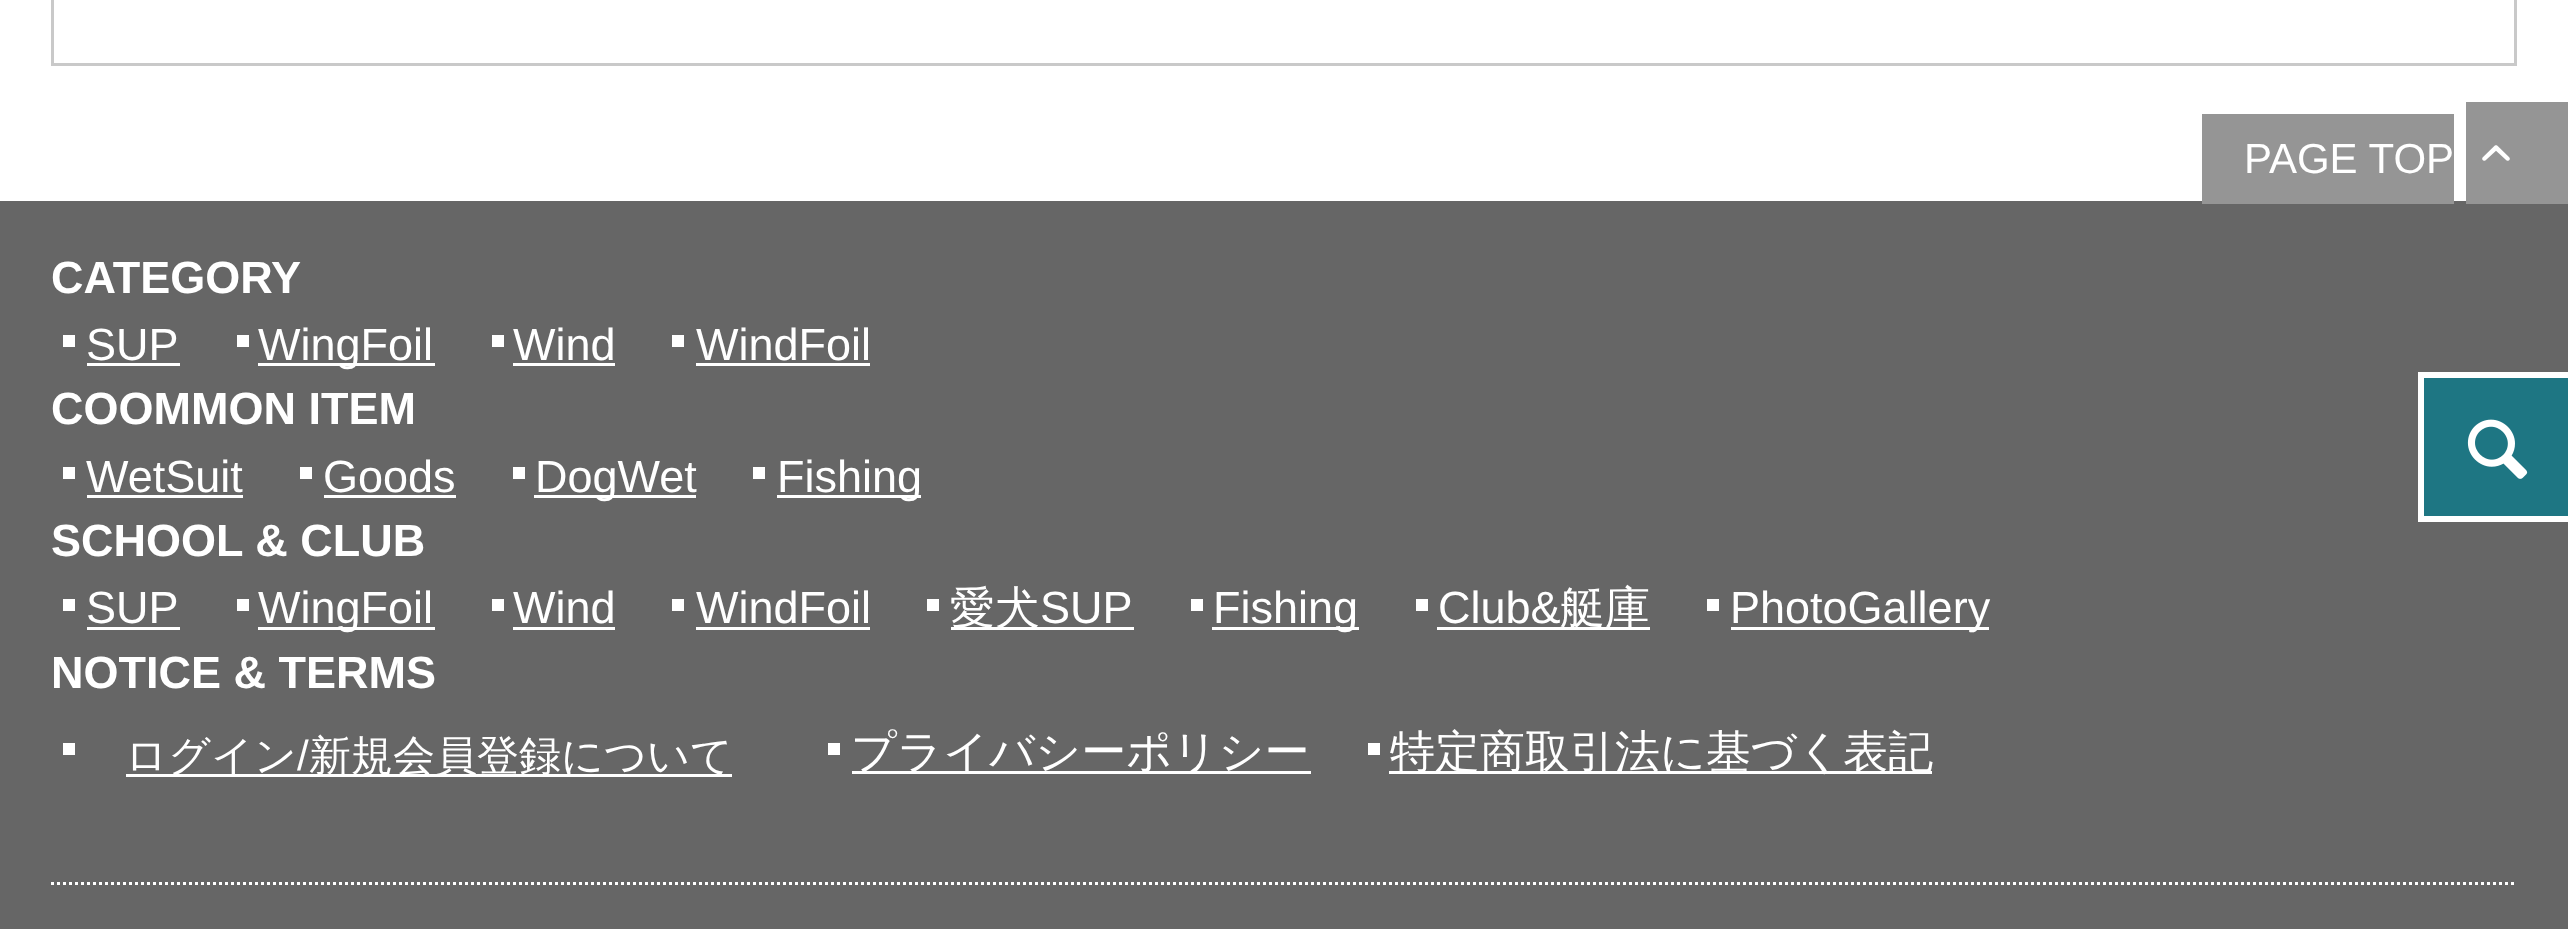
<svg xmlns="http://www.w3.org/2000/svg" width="2568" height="929">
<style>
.a{font:42px Liberation Sans;fill:#fff}
.b{font:bold 45px Liberation Sans;fill:#fff}
.c{font:45px Liberation Sans;fill:#fff}
.d{font:500 45px WenQuanYi Zen Hei;fill:#fff}
.e{font:500 42px WenQuanYi Zen Hei;fill:#fff}
</style>
<rect width="100%" height="100%" fill="#fff"/>
<path fill="none" stroke="#c9c9c9" stroke-width="3" d="M52.5 -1.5h2463v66H52.5z"/>
<path fill="#666" d="M0 201h2568v728H0z"/>
<path fill="#959595" d="M2202 114h252v90H2202z"/>
<path fill="#959595" d="M2466 102h102v102H2466z"/>
<image href="1.png" x="2482" y="145" width="28" height="16"/>
<path fill="#fff" d="M63 335h12v12H63z"/>
<path fill="#fff" d="M87 363h93v3H87z"/>
<path fill="#fff" d="M237 335h12v12H237z"/>
<path fill="#fff" d="M258 363h177v3H258z"/>
<path fill="#fff" d="M492 335h12v12H492z"/>
<path fill="#fff" d="M513 363h102v3H513z"/>
<path fill="#fff" d="M672 335h12v12H672z"/>
<path fill="#fff" d="M696 363h174v3H696z"/>
<path fill="#fff" d="M63 467h12v12H63z"/>
<path fill="#fff" d="M87 495h156v3H87z"/>
<path fill="#fff" d="M300 467h12v12H300z"/>
<path fill="#fff" d="M324 495h132v3H324z"/>
<path fill="#fff" d="M513 467h12v12H513z"/>
<path fill="#fff" d="M534 495h162v3H534z"/>
<path fill="#fff" d="M753 467h12v12H753z"/>
<path fill="#fff" d="M777 495h144v3H777z"/>
<path fill="#fff" d="M63 599h12v12H63z"/>
<path fill="#fff" d="M87 627h93v3H87z"/>
<path fill="#fff" d="M237 599h12v12H237z"/>
<path fill="#fff" d="M258 627h177v3H258z"/>
<path fill="#fff" d="M492 599h12v12H492z"/>
<path fill="#fff" d="M513 627h102v3H513z"/>
<path fill="#fff" d="M672 599h12v12H672z"/>
<path fill="#fff" d="M696 627h174v3H696z"/>
<path fill="#fff" d="M927 599h12v12H927z"/>
<path fill="#fff" d="M951 627h183v3H951z"/>
<path fill="#fff" d="M1191 599h12v12H1191z"/>
<path fill="#fff" d="M1212 627h147v3H1212z"/>
<path fill="#fff" d="M1416 599h12v12H1416z"/>
<path fill="#fff" d="M1437 627h213v3H1437z"/>
<path fill="#fff" d="M1707 599h12v12H1707z"/>
<path fill="#fff" d="M1731 627h258v3H1731z"/>
<path fill="#fff" d="M63 743h12v12H63z"/>
<path fill="#fff" d="M126 774h606v3H126z"/>
<path fill="#fff" d="M828 743h12v12H828z"/>
<path fill="#fff" d="M852 771h459v3H852z"/>
<path fill="#fff" d="M1368 743h12v12H1368z"/>
<path fill="#fff" d="M1389 771h543v3H1389z"/>
<path fill="none" stroke="#fff" stroke-width="3" stroke-dasharray="3 3" d="M51 883.5h2466"/>
<path fill="#1e7683" d="M2424 378h144v138H2424z"/>
<path fill="#fff" d="M2418 372h150v6H2418z"/>
<path fill="#fff" d="M2418 516h150v6H2418z"/>
<path fill="#fff" d="M2418 372h6v150H2418z"/>
<image href="2.png" x="2467" y="419" width="61" height="60"/>
<text class="a" x="2244" y="173">PAGE TOP</text>
<text class="b" x="51" y="293">CATEGORY</text>
<text class="c" x="86" y="360">SUP</text>
<text class="c" x="258" y="360">WingFoil</text>
<text class="c" x="513" y="360">Wind</text>
<text class="c" x="696" y="360">WindFoil</text>
<text class="b" x="51" y="424">COOMMON ITEM</text>
<text class="c" x="86" y="492">WetSuit</text>
<text class="c" x="323" y="492">Goods</text>
<text class="c" x="535" y="492">DogWet</text>
<text class="c" x="777" y="492">Fishing</text>
<text class="b" x="51" y="556">SCHOOL &amp; CLUB</text>
<text class="c" x="86" y="623">SUP</text>
<text class="c" x="258" y="623">WingFoil</text>
<text class="c" x="513" y="623">Wind</text>
<text class="c" x="696" y="623">WindFoil</text>
<text class="d" x="950" y="623">愛犬</text>
<text class="c" x="1040" y="623">SUP</text>
<text class="c" x="1213" y="623">Fishing</text>
<text class="c" x="1438" y="623">Club&amp;</text>
<text class="d" x="1560" y="623">艇庫</text>
<text class="c" x="1730" y="623">PhotoGallery</text>
<text class="b" x="51" y="688">NOTICE &amp; TERMS</text>
<text class="e" x="125" y="770">ログイン</text>
<text class="a" x="297" y="770">/</text>
<text class="e" x="309" y="770">新規会員登録について</text>
<text class="d" x="851" y="767">プライバシーポリシー</text>
<text class="d" x="1390" y="767">特定商取引法に基づく表記</text>
</svg>
